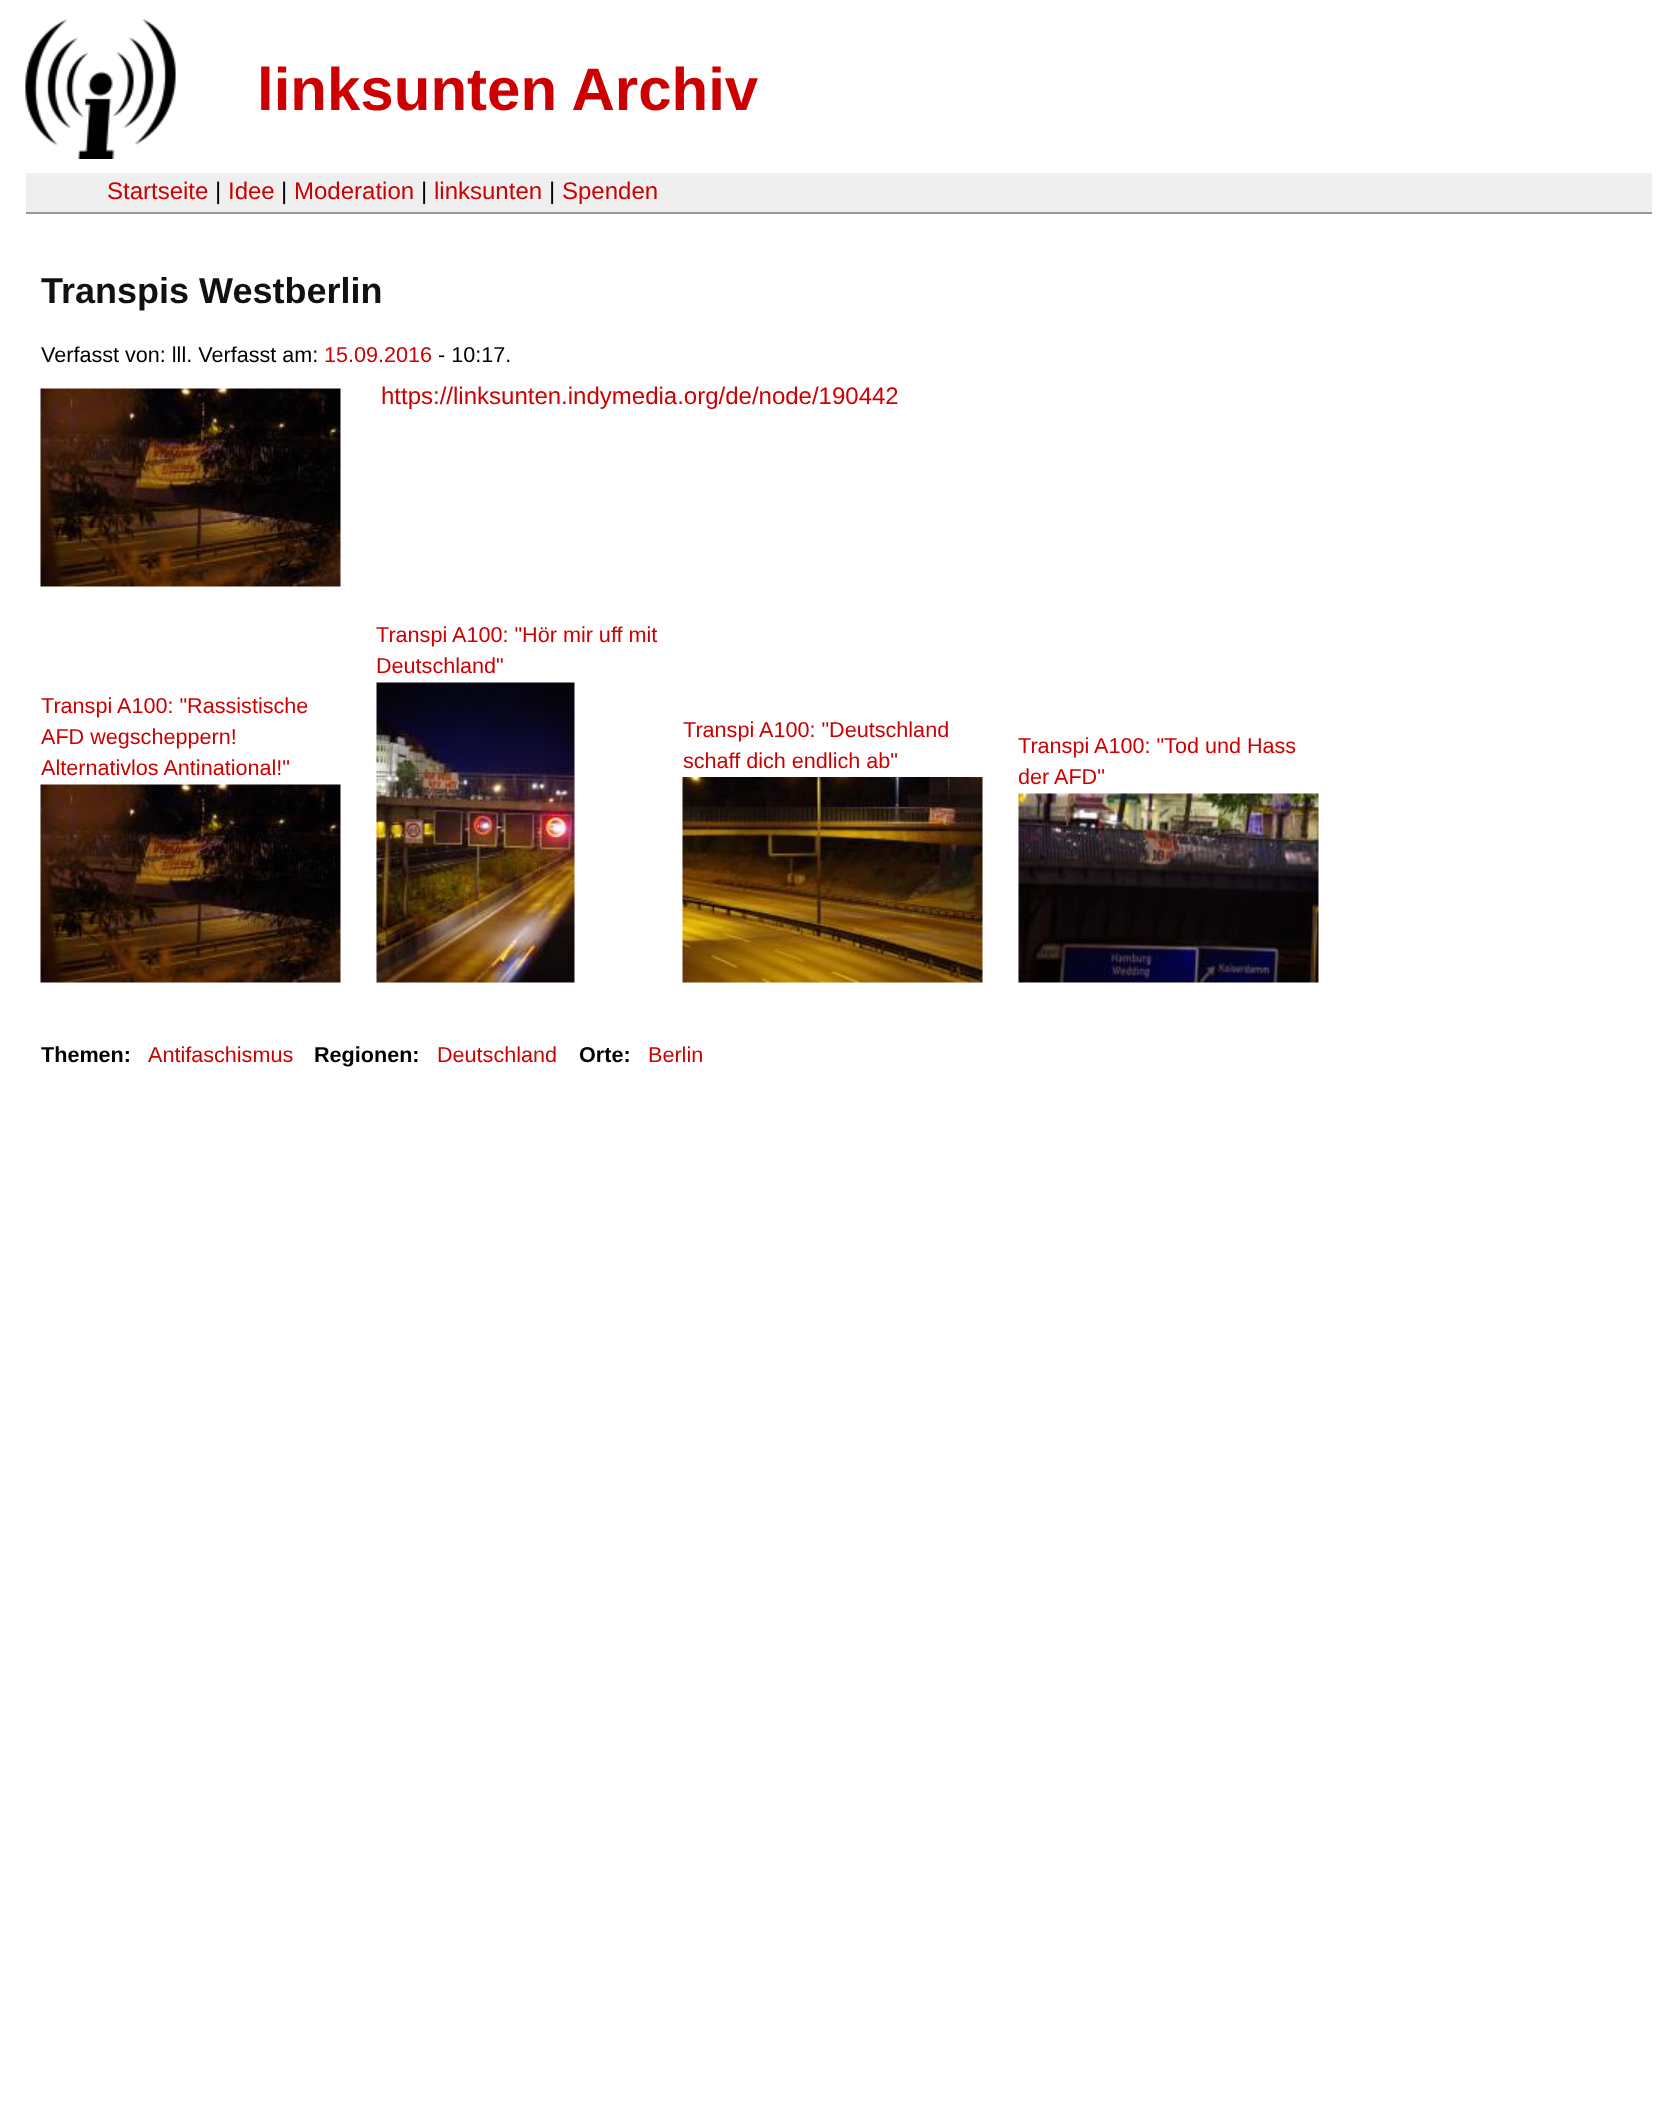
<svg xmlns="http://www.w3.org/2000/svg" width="1676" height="2109">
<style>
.a{font:bold 60px Liberation Sans;fill:#c00}
.b{font:24px Liberation Sans;fill:#c00}
.c{font:24px Liberation Sans;fill:#000}
.d{font:bold 36px Liberation Sans;fill:#111}
.e{font:21.6px Liberation Sans;fill:#000}
.f{font:21.6px Liberation Sans;fill:#c00}
.g{font:bold 21.6px Liberation Sans;fill:#000}
</style>
<rect width="100%" height="100%" fill="#fff"/>
<image href="1.png" x="25" y="19" width="151" height="140"/>
<path fill="#efefef" d="M26 173h1626v39H26z"/>
<path fill="#999" d="M26 212h1626v2H26z"/>
<image href="2.png" x="376" y="682" width="199" height="301"/>
<image href="3.png" x="40" y="784" width="301" height="199"/>
<image href="4.png" x="682" y="777" width="301" height="206"/>
<image href="5.png" x="1018" y="793" width="301" height="190"/>
<image href="3.png" x="40" y="388" width="301" height="199"/>
<text class="a" x="257" y="110">linksunten Archiv</text>
<text class="b" x="107" y="199">Startseite</text>
<text class="c" x="215" y="199">|</text>
<text class="b" x="228" y="199">Idee</text>
<text class="c" x="281" y="199">|</text>
<text class="b" x="294" y="199">Moderation</text>
<text class="c" x="421" y="199">|</text>
<text class="b" x="434" y="199">linksunten</text>
<text class="c" x="549" y="199">|</text>
<text class="b" x="562" y="199">Spenden</text>
<text class="d" x="41" y="303">Transpis Westberlin</text>
<text class="e" x="41" y="362">Verfasst von: lll. Verfasst am:</text>
<text class="f" x="324" y="362">15.09.2016</text>
<text class="e" x="438" y="362">- 10:17.</text>
<text class="b" x="381" y="404">https://linksunten.indymedia.org/de/node/190442</text>
<text class="f" x="376" y="642">Transpi A100: "Hör mir uff mit</text>
<text class="f" x="376" y="673">Deutschland"</text>
<text class="f" x="41" y="713">Transpi A100: "Rassistische</text>
<text class="f" x="41" y="744">AFD wegscheppern!</text>
<text class="f" x="41" y="775">Alternativlos Antinational!"</text>
<text class="f" x="683" y="737">Transpi A100: "Deutschland</text>
<text class="f" x="683" y="768">schaff dich endlich ab"</text>
<text class="f" x="1018" y="753">Transpi A100: "Tod und Hass</text>
<text class="f" x="1018" y="784">der AFD"</text>
<text class="g" x="41" y="1062">Themen:</text>
<text class="f" x="148" y="1062">Antifaschismus</text>
<text class="g" x="314" y="1062">Regionen:</text>
<text class="f" x="437" y="1062">Deutschland</text>
<text class="g" x="579" y="1062">Orte:</text>
<text class="f" x="648" y="1062">Berlin</text>
</svg>
